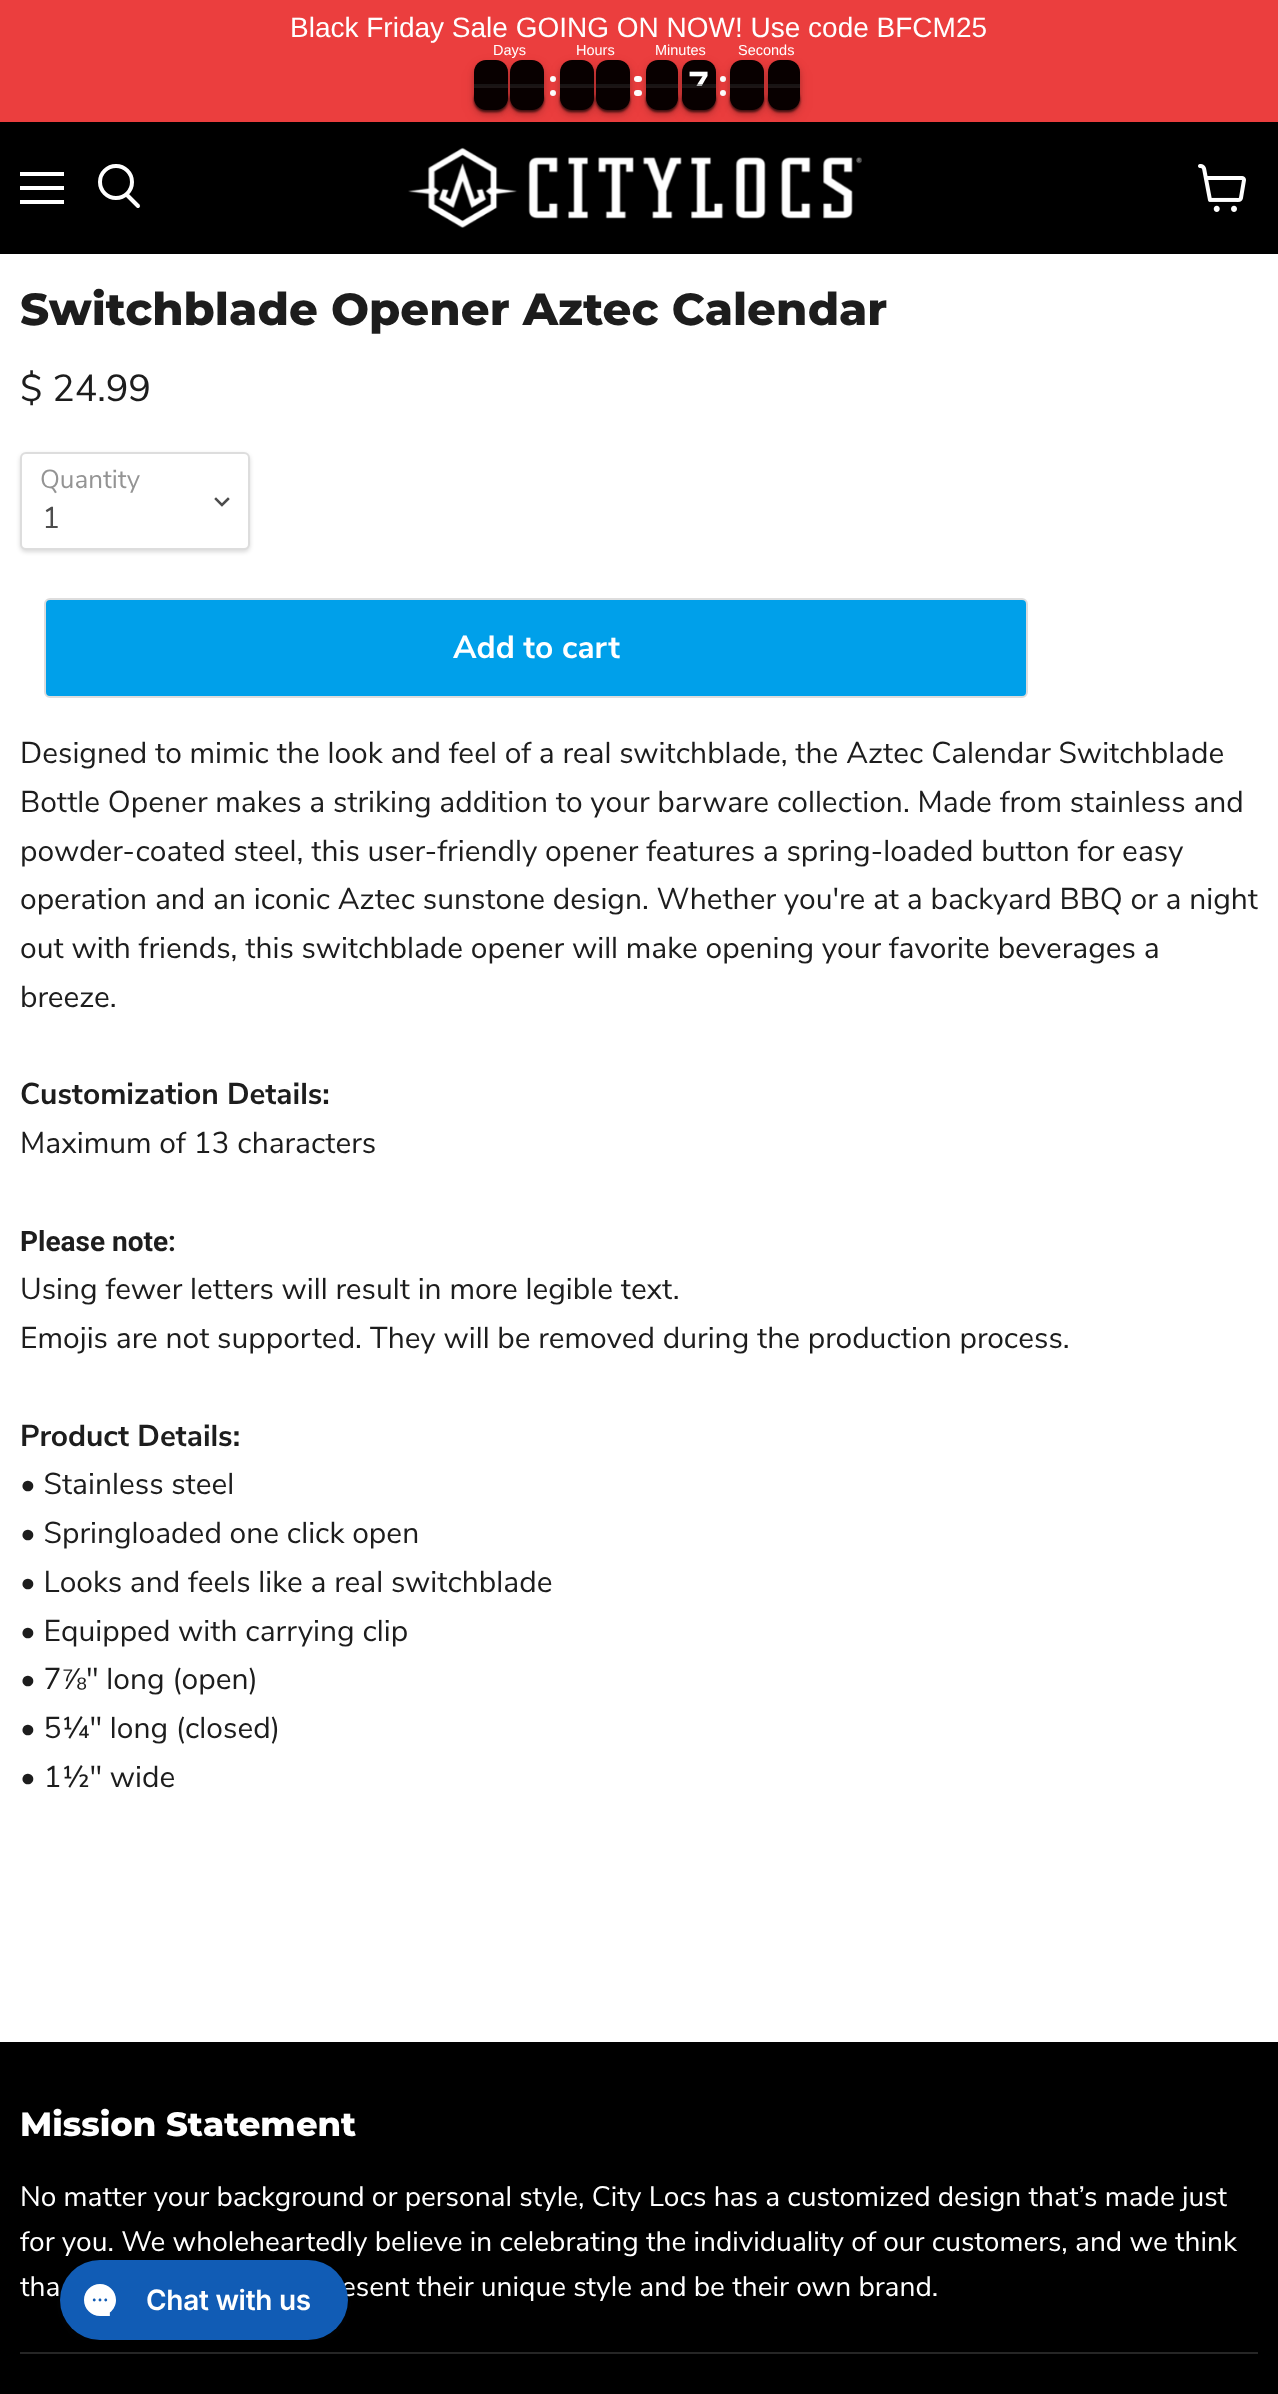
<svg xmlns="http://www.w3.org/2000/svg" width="1278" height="2394">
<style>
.a{font:28px Liberation Sans;fill:#fff}
.b{font:14.5px Liberation Sans;fill:#fff}
.c{font:bold 38px Liberation Sans;fill:#fff}
.d{font:800 45px Montserrat;fill:#1d1d1d}
.e{font:37.5px Nunito Sans;fill:#1d1d1d}
.f{font:26px Nunito Sans;fill:#949494}
.g{font:30px Nunito Sans;fill:#4d4d4d}
.h{font:bold 31.75px Nunito Sans;fill:#fff}
.i{font:30px Nunito Sans;fill:#1d1d1d}
.j{font:bold 30px Nunito Sans;fill:#1d1d1d}
.k{font:bold 28px Roboto;fill:#1d1d1d}
.l{font:30px Liberation Sans;fill:#1d1d1d}
.m{font:800 33.75px Montserrat;fill:#fff}
.n{font:28.1px Nunito Sans;fill:#fff}
</style>
<rect width="100%" height="100%" fill="#fff"/>
<path fill="#eb3e3e" d="M0 0h1278v122H0z"/>
<path fill="#000" d="M0 122h1278v132H0z"/>
<rect fill="#0000000d" filter="blur(8px)" x="474" y="66" width="34" height="50" rx="12"/>
<rect fill="#0000003d" filter="blur(3px)" x="474" y="64" width="34" height="50" rx="12"/>
<rect fill="#00000066" filter="blur(1px)" x="474" y="88" width="34" height="24" rx="12"/>
<rect fill="#0000000d" filter="blur(8px)" x="510" y="66" width="34" height="50" rx="12"/>
<rect fill="#0000003d" filter="blur(3px)" x="510" y="64" width="34" height="50" rx="12"/>
<rect fill="#00000066" filter="blur(1px)" x="510" y="88" width="34" height="24" rx="12"/>
<path fill="#080000" d="M486 60h10c6.5 0 12 5.5 12 12v14h-34v-14c0-6.5 5.5-12 12-12z"/>
<path fill="#33333366" d="M474 84h34v2H474z"/>
<rect fill="#00000066" filter="blur(1px)" x="474" y="88" width="34" height="24" rx="12"/>
<path fill="#080000" d="M474 86h34v12c0 6.5-5.5 12-12 12h-10c-6.5 0-12-5.5-12-12z"/>
<path fill="#cccccc1a" d="M474 86h34v2H474z"/>
<circle fill="#fff" cx="553" cy="79" r="3"/>
<circle fill="#fff" cx="553" cy="93" r="3"/>
<rect fill="#0000000d" filter="blur(8px)" x="560" y="66" width="34" height="50" rx="12"/>
<path fill="#080000" d="M522 60h10c6.5 0 12 5.5 12 12v14h-34v-14c0-6.5 5.5-12 12-12z"/>
<path fill="#33333366" d="M510 84h34v2H510z"/>
<rect fill="#00000066" filter="blur(1px)" x="510" y="88" width="34" height="24" rx="12"/>
<path fill="#080000" d="M510 86h34v12c0 6.5-5.5 12-12 12h-10c-6.5 0-12-5.5-12-12z"/>
<path fill="#cccccc1a" d="M510 86h34v2H510z"/>
<rect fill="#0000003d" filter="blur(3px)" x="560" y="64" width="34" height="50" rx="12"/>
<rect fill="#00000066" filter="blur(1px)" x="560" y="88" width="34" height="24" rx="12"/>
<rect fill="#0000000d" filter="blur(8px)" x="596" y="66" width="34" height="50" rx="12"/>
<rect fill="#0000003d" filter="blur(3px)" x="596" y="64" width="34" height="50" rx="12"/>
<rect fill="#00000066" filter="blur(1px)" x="596" y="88" width="34" height="24" rx="12"/>
<path fill="#080000" d="M572 60h10c6.5 0 12 5.5 12 12v14h-34v-14c0-6.5 5.5-12 12-12z"/>
<path fill="#33333366" d="M560 84h34v2H560z"/>
<rect fill="#00000066" filter="blur(1px)" x="560" y="88" width="34" height="24" rx="12"/>
<path fill="#080000" d="M560 86h34v12c0 6.5-5.5 12-12 12h-10c-6.5 0-12-5.5-12-12z"/>
<path fill="#cccccc1a" d="M560 86h34v2H560z"/>
<rect fill="#fff" x="634" y="76" width="8" height="6" rx="3"/>
<rect fill="#fff" x="634" y="90" width="8" height="6" rx="3"/>
<rect fill="#0000000d" filter="blur(8px)" x="646" y="66" width="32" height="50" rx="12"/>
<path fill="#080000" d="M608 60h10c6.5 0 12 5.5 12 12v14h-34v-14c0-6.5 5.5-12 12-12z"/>
<path fill="#33333366" d="M596 84h34v2H596z"/>
<rect fill="#00000066" filter="blur(1px)" x="596" y="88" width="34" height="24" rx="12"/>
<path fill="#080000" d="M596 86h34v12c0 6.5-5.5 12-12 12h-10c-6.5 0-12-5.5-12-12z"/>
<path fill="#cccccc1a" d="M596 86h34v2H596z"/>
<rect fill="#0000003d" filter="blur(3px)" x="646" y="64" width="32" height="50" rx="12"/>
<rect fill="#00000066" filter="blur(1px)" x="646" y="88" width="32" height="24" rx="12"/>
<rect fill="#0000000d" filter="blur(8px)" x="682" y="66" width="34" height="50" rx="12"/>
<rect fill="#0000003d" filter="blur(3px)" x="682" y="64" width="34" height="50" rx="12"/>
<path fill="#080000" d="M658 60h8c6.5 0 12 5.5 12 12v14h-32v-14c0-6.5 5.5-12 12-12z"/>
<path fill="#33333366" d="M646 84h32v2H646z"/>
<rect fill="#00000066" filter="blur(1px)" x="646" y="88" width="32" height="24" rx="12"/>
<path fill="#080000" d="M646 86h32v12c0 6.5-5.5 12-12 12h-8c-6.5 0-12-5.5-12-12z"/>
<path fill="#cccccc1a" d="M646 86h32v2H646z"/>
<rect fill="#00000066" filter="blur(1px)" x="682" y="88" width="34" height="24" rx="12"/>
<circle fill="#fff" cx="723" cy="79" r="3"/>
<circle fill="#fff" cx="723" cy="93" r="3"/>
<rect fill="#0000000d" filter="blur(8px)" x="730" y="66" width="34" height="50" rx="12"/>
<path fill="#080000" d="M694 60h10c6.5 0 12 5.5 12 12v14h-34v-14c0-6.5 5.5-12 12-12z"/>
<rect fill="#0000003d" filter="blur(3px)" x="730" y="64" width="34" height="50" rx="12"/>
<rect fill="#00000066" filter="blur(1px)" x="730" y="88" width="34" height="24" rx="12"/>
<rect fill="#0000000d" filter="blur(8px)" x="768" y="66" width="32" height="50" rx="12"/>
<rect fill="#0000003d" filter="blur(3px)" x="768" y="64" width="32" height="50" rx="12"/>
<path fill="#080000" d="M742 60h10c6.5 0 12 5.5 12 12v14h-34v-14c0-6.5 5.5-12 12-12z"/>
<path fill="#33333366" d="M730 84h34v2H730z"/>
<rect fill="#00000066" filter="blur(1px)" x="730" y="88" width="34" height="24" rx="12"/>
<path fill="#080000" d="M730 86h34v12c0 6.5-5.5 12-12 12h-10c-6.5 0-12-5.5-12-12z"/>
<path fill="#cccccc1a" d="M730 86h34v2H730z"/>
<rect fill="#00000066" filter="blur(1px)" x="768" y="88" width="32" height="24" rx="12"/>
<path fill="#080000" d="M780 60h8c6.5 0 12 5.5 12 12v14h-32v-14c0-6.5 5.5-12 12-12z"/>
<path fill="#33333366" d="M768 84h32v2H768z"/>
<rect fill="#00000066" filter="blur(1px)" x="768" y="88" width="32" height="24" rx="12"/>
<path fill="#080000" d="M768 86h32v12c0 6.5-5.5 12-12 12h-8c-6.5 0-12-5.5-12-12z"/>
<path fill="#cccccc1a" d="M768 86h32v2H768z"/>
<path fill="#fff" d="M20 172h44v4H20z"/>
<path fill="#fff" d="M20 186h44v4H20z"/>
<path fill="#fff" d="M20 200h44v4H20z"/>
<path fill="none" stroke="#fff" stroke-width="4" stroke-linecap="round" d="M138 206l-11-11"/>
<circle fill="none" stroke="#fff" stroke-width="4" cx="116" cy="182" r="16"/>
<image href="1.png" x="408" y="147" width="454" height="81"/>
<image href="2.png" x="1198" y="164" width="48" height="48"/>
<rect fill="#00000026" filter="blur(2px)" x="20" y="454" width="230" height="98" rx="6"/>
<rect fill="#fff" stroke="#ddd" stroke-width="2" x="21" y="453" width="228" height="96" rx="5"/>
<path fill="none" stroke="#4d4d4d" stroke-width="2.5" stroke-linecap="square" d="M222 505l6-6m-6 6l-6-6"/>
<rect fill="#00a0ea" stroke="#ddd" stroke-width="2" x="45" y="599" width="982" height="98" rx="5"/>
<path fill="#000" d="M0 2042h1278v352H0z"/>
<path fill="#262626" d="M20 2352h1238v2H20z"/>
<text class="a" x="290" y="37">Black Friday Sale GOING ON NOW! Use code BFCM25</text>
<text class="b" x="493" y="55">Days</text>
<text class="b" x="576" y="55">Hours</text>
<text class="b" x="655" y="55">Minutes</text>
<text class="c" x="688" y="98">7</text>
<path fill="#33333366" d="M682 84h34v2H682z"/>
<rect fill="#00000066" filter="blur(1px)" x="682" y="88" width="34" height="24" rx="12"/>
<path fill="#080000" d="M682 86h34v12c0 6.5-5.5 12-12 12h-10c-6.5 0-12-5.5-12-12z"/>
<path fill="#cccccc1a" d="M682 86h34v2H682z"/>
<text class="b" x="738" y="55">Seconds</text>
<text class="d" x="20" y="325">Switchblade Opener Aztec Calendar</text>
<text class="e" x="20" y="401">$ 24.99</text>
<text class="f" x="40" y="488">Quantity</text>
<text class="g" x="42" y="528">1</text>
<text class="h" x="453" y="658">Add to cart</text>
<text class="i" x="20" y="763">Designed to mimic the look and feel of a real switchblade, the Aztec Calendar Switchblade</text>
<text class="i" x="20" y="812">Bottle Opener makes a striking addition to your barware collection. Made from stainless and</text>
<text class="i" x="20" y="861">powder-coated steel, this user-friendly opener features a spring-loaded button for easy</text>
<text class="i" x="20" y="909">operation and an iconic Aztec sunstone design. Whether you're at a backyard BBQ or a night</text>
<text class="i" x="20" y="958">out with friends, this switchblade opener will make opening your favorite beverages a</text>
<text class="i" x="20" y="1007">breeze.</text>
<text class="j" x="20" y="1104">Customization Details:</text>
<text class="i" x="20" y="1153">Maximum of 13 characters</text>
<text class="k" x="20" y="1251">Please note:</text>
<text class="i" x="20" y="1299">Using fewer letters will result in more legible text.</text>
<text class="i" x="20" y="1348">Emojis are not supported. They will be removed during the production process.</text>
<text class="j" x="20" y="1446">Product Details:</text>
<text class="i" x="20" y="1494">• Stainless steel</text>
<text class="i" x="20" y="1543">• Springloaded one click open</text>
<text class="i" x="20" y="1592">• Looks and feels like a real switchblade</text>
<text class="i" x="20" y="1641">• Equipped with carrying clip</text>
<text class="i" x="20" y="1689">• 7</text>
<text class="l" x="61" y="1689">⅞</text>
<text class="i" x="86" y="1689">" long (open)</text>
<text class="i" x="20" y="1738">• 5¼" long (closed)</text>
<text class="i" x="20" y="1787">• 1½" wide</text>
<text class="m" x="20" y="2136">Mission Statement</text>
<text class="n" x="20" y="2206">No matter your background or personal style, City Locs has a customized design that’s made just</text>
<text class="n" x="20" y="2251">for you. We wholeheartedly believe in celebrating the individuality of our customers, and we think</text>
<text class="n" x="20" y="2296">tha</text>
<text class="n" x="341" y="2296">esent their unique style and be their own brand.</text>
<image href="3.png" x="56" y="2260" width="296" height="80"/>
</svg>
